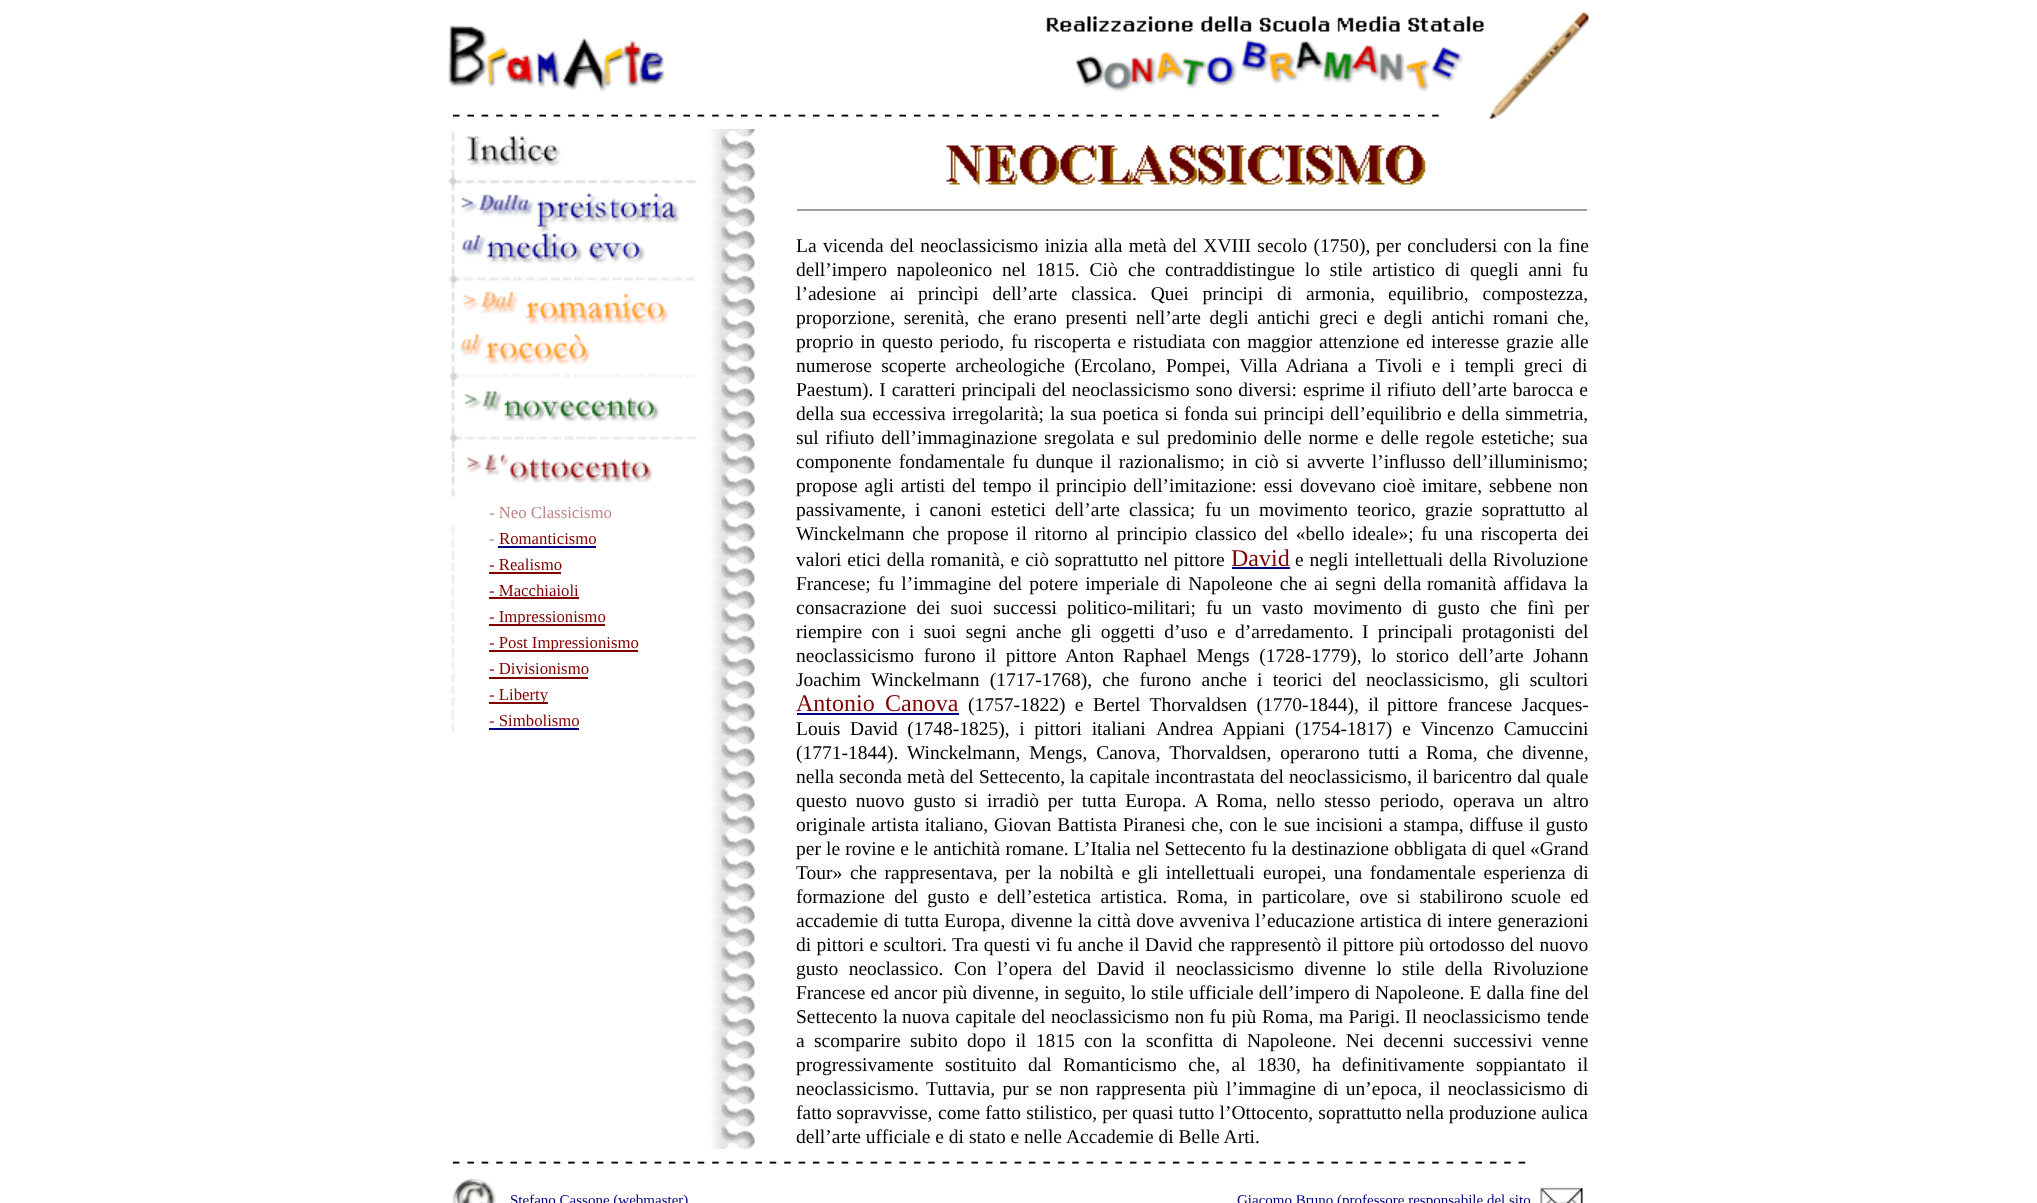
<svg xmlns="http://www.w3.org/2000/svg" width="2037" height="1203">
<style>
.a{font:24px Liberation Mono;fill:#000}
.b{font:16.75px Liberation Serif;fill:#c28585}
.c{font:16.75px Liberation Serif;fill:#800000}
.d{font:19.5px Liberation Serif;fill:#000}
.e{font:24px Liberation Serif;fill:#800000}
.f{font:15px Liberation Serif;fill:#000080}
</style>
<rect width="100%" height="100%" fill="#fff"/>
<image href="1.png" x="448" y="25" width="218" height="68"/>
<image href="2.png" x="1046" y="16" width="438" height="16"/>
<image href="3.png" x="1498" y="12" width="91" height="90"/>
<image href="4.png" x="1075" y="51" width="163" height="41"/>
<image href="5.png" x="1242" y="40" width="222" height="52"/>
<image href="6.png" x="1489" y="102" width="25" height="17"/>
<image href="7.png" x="448" y="132" width="249" height="365"/>
<image href="8.png" x="451" y="525" width="4" height="207"/>
<path fill="#000080" d="M498 546h98v2H498z"/>
<path fill="#800000" d="M489 572h72v2H489z"/>
<path fill="#800000" d="M489 597h90v2H489z"/>
<path fill="#800000" d="M489 624h116v2H489z"/>
<path fill="#800000" d="M489 650h149v2H489z"/>
<path fill="#800000" d="M489 677h99v2H489z"/>
<path fill="#800000" d="M489 702h59v2H489z"/>
<path fill="#000080" d="M489 728h90v2H489z"/>
<image href="9.png" x="711" y="129" width="44" height="1020"/>
<image href="10.png" x="946" y="145" width="480" height="40"/>
<path fill="#9f9f9f" d="M797 209h792v2H797z"/>
<path fill="#eee" d="M1587 209h2v2H1587z"/>
<path fill="#000080" d="M1232 567h58v2H1232z"/>
<path fill="#000080" d="M797 713h162v2H797z"/>
<image href="11.png" x="452" y="1178" width="44" height="25"/>
<image href="12.png" x="1540" y="1187" width="43" height="16"/>
<text class="a" x="449" y="122">---------------------------------------------------------------------</text>
<text class="b" x="489" y="518">- Neo Classicismo</text>
<text class="b" x="489" y="544">-</text>
<text class="c" x="499" y="544">Romanticismo</text>
<text class="c" x="489" y="570">- Realismo</text>
<text class="c" x="489" y="596">- Macchiaioli</text>
<text class="c" x="489" y="622">- Impressionismo</text>
<text class="c" x="489" y="648">- Post Impressionismo</text>
<text class="c" x="489" y="674">- Divisionismo</text>
<text class="c" x="489" y="700">- Liberty</text>
<text class="c" x="489" y="726">- Simbolismo</text>
<text class="d" x="796" y="252">La</text>
<text class="d" x="823" y="252" word-spacing="1.5">vicenda del neoclassicismo inizia alla metà del XVIII secolo (1750),</text>
<text class="d" x="1376" y="252" word-spacing="1.5">per concludersi con la fine</text>
<text class="d" x="796" y="276" word-spacing="5">dell’impero napoleonico nel 1815. Ciò</text>
<text class="d" x="1128" y="276" word-spacing="5">che contraddistingue lo stile artistico di quegli anni fu</text>
<text class="d" x="796" y="300">l’adesione</text>
<text class="d" x="890" y="300" word-spacing="9">ai princìpi dell’arte classica. Quei principi di armonia,</text>
<text class="d" x="1388" y="300" word-spacing="9">equilibrio, compostezza,</text>
<text class="d" x="796" y="324" word-spacing="3.75">proporzione, serenità, che erano presenti</text>
<text class="d" x="1136" y="324" word-spacing="3.75">nell’arte degli antichi greci e degli antichi romani che,</text>
<text class="d" x="796" y="348" word-spacing="1.9">proprio in</text>
<text class="d" x="882" y="348" word-spacing="1.9">questo periodo, fu riscoperta e ristudiata con maggior attenzione ed</text>
<text class="d" x="1431" y="348" word-spacing="2">interesse grazie alle</text>
<text class="d" x="796" y="372" word-spacing="4.5">numerose scoperte archeologiche (Ercolano,</text>
<text class="d" x="1166" y="372" word-spacing="4.5">Pompei, Villa Adriana a Tivoli e i templi greci di</text>
<text class="d" x="796" y="396" word-spacing="1">Paestum). I caratteri principali del neoclassicismo sono diversi:</text>
<text class="d" x="1303" y="396" word-spacing="1">esprime il rifiuto dell’arte barocca e</text>
<text class="d" x="796" y="420" word-spacing="1.25">della sua eccessiva</text>
<text class="d" x="952" y="420" word-spacing="1.25">irregolarità; la sua poetica si fonda sui principi dell’equilibrio</text>
<text class="d" x="1447" y="420" word-spacing="1">e della simmetria,</text>
<text class="d" x="796" y="444" word-spacing="2">sul rifiuto dell’immaginazione sregolata e sul</text>
<text class="d" x="1167" y="444" word-spacing="2">predominio delle norme e delle regole estetiche;</text>
<text class="d" x="1562" y="444">sua</text>
<text class="d" x="796" y="468" word-spacing="2.5">componente fondamentale fu dunque il razionalismo; in ciò si</text>
<text class="d" x="1307" y="468" word-spacing="2.5">avverte l’influsso dell’illuminismo;</text>
<text class="d" x="796" y="492" word-spacing="2">propose agli artisti del tempo il principio dell’imitazione: essi</text>
<text class="d" x="1300" y="492" word-spacing="2">dovevano cioè imitare, sebbene non</text>
<text class="d" x="796" y="516" word-spacing="4.25">passivamente, i canoni estetici</text>
<text class="d" x="1055" y="516" word-spacing="4.25">dell’arte classica;</text>
<text class="d" x="1205" y="516" word-spacing="4.25">fu un movimento teorico, grazie soprattutto al</text>
<text class="d" x="796" y="540" word-spacing="2.75">Winckelmann che propose</text>
<text class="d" x="1016" y="540" word-spacing="2.75">il ritorno al principio classico del «bello ideale»;</text>
<text class="d" x="1421" y="540" word-spacing="2.75">fu una riscoperta dei</text>
<text class="d" x="796" y="566" word-spacing="1">valori etici della romanità, e ciò soprattutto</text>
<text class="d" x="1144" y="566" word-spacing="1">nel pittore</text>
<text class="e" x="1231" y="566">David</text>
<text class="d" x="1295" y="566" word-spacing="1">e negli intellettuali della Rivoluzione</text>
<text class="d" x="796" y="590">Francese;</text>
<text class="d" x="878" y="590" word-spacing="2.25">fu l’immagine del potere imperiale di Napoleone che ai segni della</text>
<text class="d" x="1427" y="590" word-spacing="2.25">romanità affidava la</text>
<text class="d" x="796" y="614" word-spacing="5.25">consacrazione dei suoi successi</text>
<text class="d" x="1067" y="614">politico-militari;</text>
<text class="d" x="1206" y="614" word-spacing="5.25">fu un vasto movimento di gusto che finì per</text>
<text class="d" x="796" y="638" word-spacing="4.5">riempire con i suoi segni</text>
<text class="d" x="1016" y="638" word-spacing="4.5">anche gli oggetti d’uso e d’arredamento.</text>
<text class="d" x="1362" y="638" word-spacing="4.5">I principali protagonisti del</text>
<text class="d" x="796" y="662" word-spacing="4.75">neoclassicismo furono il pittore Anton</text>
<text class="d" x="1123" y="662" word-spacing="4.75">Raphael Mengs (1728-1779), lo storico dell’arte Johann</text>
<text class="d" x="796" y="686">Joachim</text>
<text class="d" x="871" y="686" word-spacing="5.25">Winckelmann (1717-1768), che furono anche i teorici del</text>
<text class="d" x="1366" y="686" word-spacing="5.25">neoclassicismo, gli scultori</text>
<text class="e" x="796" y="711">Antonio</text>
<text class="e" x="885" y="711">Canova</text>
<text class="d" x="968" y="711" word-spacing="4.5">(1757-1822) e Bertel Thorvaldsen (1770-1844), il</text>
<text class="d" x="1387" y="711" word-spacing="4.5">pittore francese Jacques-</text>
<text class="d" x="796" y="735" word-spacing="4.75">Louis David (1748-1825), i pittori italiani</text>
<text class="d" x="1156" y="735" word-spacing="5">Andrea Appiani (1754-1817) e Vincenzo Camuccini</text>
<text class="d" x="796" y="759">(1771-1844).</text>
<text class="d" x="907" y="759" word-spacing="4">Winckelmann, Mengs, Canova, Thorvaldsen, operarono tutti a Roma, che</text>
<text class="d" x="1522" y="759">divenne,</text>
<text class="d" x="796" y="783" word-spacing="0.25">nella seconda metà del Settecento, la capitale incontrastata</text>
<text class="d" x="1260" y="783" word-spacing="0.25">del neoclassicismo, il baricentro dal quale</text>
<text class="d" x="796" y="807" word-spacing="4">questo nuovo gusto si</text>
<text class="d" x="987" y="807" word-spacing="4">irradiò per tutta Europa. A Roma, nello stesso periodo, operava un</text>
<text class="d" x="1553" y="807">altro</text>
<text class="d" x="796" y="831" word-spacing="1">originale artista italiano, Giovan Battista Piranesi che, con le</text>
<text class="d" x="1284" y="831" word-spacing="1">sue incisioni a stampa, diffuse il gusto</text>
<text class="d" x="796" y="855" word-spacing="0.25">per le rovine e le antichità romane. L’Italia nel Settecento fu la destinazione obbligata di quel</text>
<text class="d" x="1530" y="855">«Grand</text>
<text class="d" x="796" y="879" word-spacing="2.75">Tour» che rappresentava, per la nobiltà e gli intellettuali</text>
<text class="d" x="1263" y="879" word-spacing="2.75">europei, una fondamentale esperienza di</text>
<text class="d" x="796" y="903" word-spacing="4.5">formazione del gusto e</text>
<text class="d" x="997" y="903" word-spacing="4.5">dell’estetica artistica. Roma, in particolare, ove si stabilirono</text>
<text class="d" x="1511" y="903" word-spacing="4.5">scuole ed</text>
<text class="d" x="796" y="927" word-spacing="0.5">accademie di tutta Europa, divenne la città dove avveniva</text>
<text class="d" x="1255" y="927" word-spacing="0.5">l’educazione artistica di intere generazioni</text>
<text class="d" x="796" y="951" word-spacing="0.5">di pittori e scultori.</text>
<text class="d" x="952" y="951" word-spacing="0.5">Tra questi vi fu anche il David che rappresentò il pittore più</text>
<text class="d" x="1429" y="951" word-spacing="0.5">ortodosso del nuovo</text>
<text class="d" x="796" y="975" word-spacing="5.5">gusto neoclassico.</text>
<text class="d" x="954" y="975" word-spacing="5.5">Con l’opera del David il neoclassicismo divenne lo stile della</text>
<text class="d" x="1493" y="975">Rivoluzione</text>
<text class="d" x="796" y="999" word-spacing="0.25">Francese ed ancor più divenne, in seguito, lo stile</text>
<text class="d" x="1189" y="999" word-spacing="0.25">ufficiale dell’impero di Napoleone. E dalla fine del</text>
<text class="d" x="796" y="1023" word-spacing="1">Settecento la</text>
<text class="d" x="902" y="1023" word-spacing="0.75">nuova capitale del neoclassicismo non fu più Roma, ma Parigi.</text>
<text class="d" x="1405" y="1023" word-spacing="1">Il neoclassicismo tende</text>
<text class="d" x="796" y="1047" word-spacing="4.5">a scomparire subito dopo il 1815 con la</text>
<text class="d" x="1146" y="1047" word-spacing="4.5">sconfitta di Napoleone. Nei decenni successivi venne</text>
<text class="d" x="796" y="1071">progressivamente</text>
<text class="d" x="945" y="1071" word-spacing="6.5">sostituito dal Romanticismo che, al 1830, ha definitivamente</text>
<text class="d" x="1476" y="1071" word-spacing="6.5">soppiantato il</text>
<text class="d" x="796" y="1095" word-spacing="2.5">neoclassicismo. Tuttavia, pur se non rappresenta più</text>
<text class="d" x="1226" y="1095" word-spacing="2.5">l’immagine di un’epoca, il neoclassicismo di</text>
<text class="d" x="796" y="1119">fatto sopravvisse,</text>
<text class="d" x="938" y="1119" word-spacing="0.25">come fatto stilistico, per quasi tutto l’Ottocento, soprattutto</text>
<text class="d" x="1406" y="1119">nella produzione aulica</text>
<text class="d" x="796" y="1143">dell’arte ufficiale e di stato e nelle</text>
<text class="d" x="1066" y="1143">Accademie di Belle Arti.</text>
<text class="a" x="449" y="1169">---------------------------------------------------------------------------</text>
<text class="f" x="510" y="1205">Stefano Cassone (webmaster)</text>
<text class="f" x="1237" y="1205">Giacomo Bruno (professore responsabile del sito</text>
</svg>
